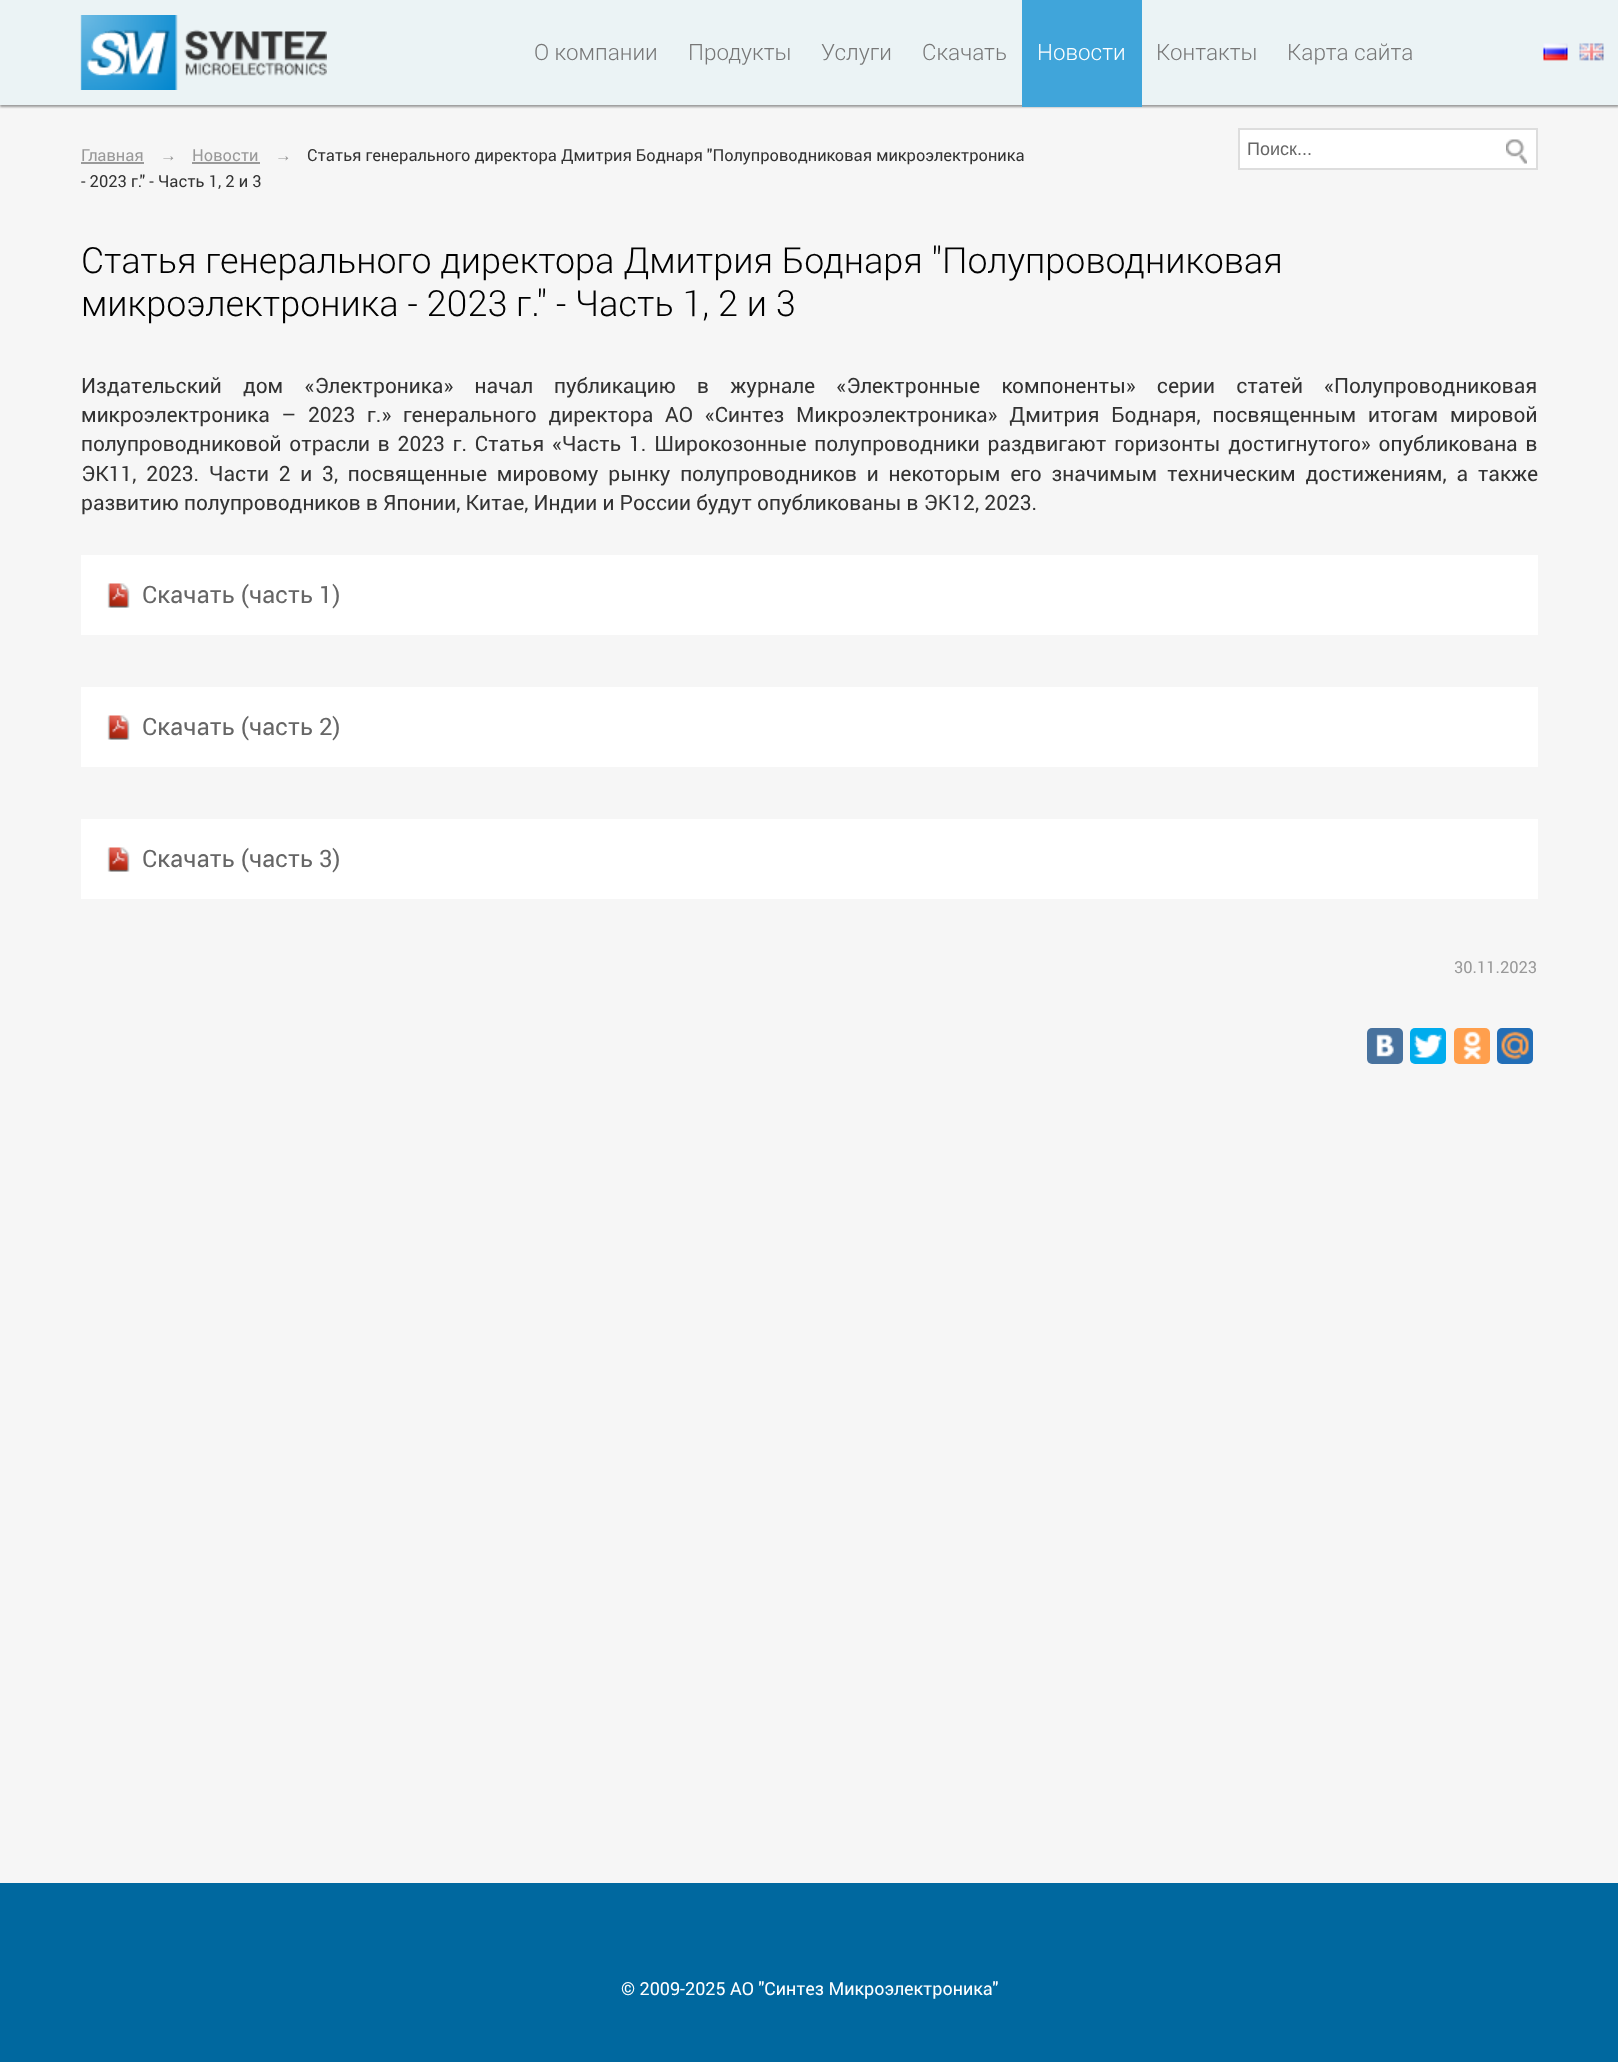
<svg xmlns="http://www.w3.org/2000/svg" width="1618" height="2062">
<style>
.a{font:300 22.5px Roboto;fill:#777}
.b{font:300 22.5px Roboto;fill:#fff}
.c{font:16.5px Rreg;fill:#999}
.d{font:16.5px Liberation Serif;fill:#999}
.e{font:16.5px Rreg;fill:#333}
.f{font:18px Liberation Sans;fill:#666}
.g{font:300 36px Roboto;fill:#000}
.h{font:21px Rreg;fill:#333}
.i{font:24px Rreg;fill:#666}
.j{font:18px Rreg;fill:#fff}
</style>
<rect width="100%" height="100%" fill="#f6f6f6"/>
<path fill="#999" filter="blur(1px)" d="M0 2h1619v105H0z"/>
<path fill="#ebf3f5" d="M0 0h1618v105H0z"/>
<image href="1.png" x="80" y="15" width="247" height="75"/>
<path fill="#40a5da" d="M1022 0h120v107H1022z"/>
<image href="2.png" x="1543" y="43" width="25" height="18"/>
<image href="3.png" x="1579" y="43" width="25" height="18"/>
<path fill="#999" d="M81 162h63v2H81z"/>
<path fill="#999" d="M192 162h68v2H192z"/>
<path fill="#fff" stroke="#ddd" stroke-width="2" d="M1239 129h298v40H1239z"/>
<image href="4.png" x="1506" y="139" width="21" height="25"/>
<path fill="#fff" d="M81 555h1457v80H81z"/>
<image href="5.png" x="107" y="583" width="23" height="25"/>
<path fill="#fff" d="M81 687h1457v80H81z"/>
<image href="5.png" x="107" y="715" width="23" height="25"/>
<path fill="#fff" d="M81 819h1457v80H81z"/>
<image href="5.png" x="107" y="847" width="23" height="25"/>
<rect fill="#48729e" x="1367" y="1028" width="36" height="36" rx="5"/>
<image href="6.png" x="1376" y="1034" width="18" height="23"/>
<rect fill="#00aced" x="1410" y="1028" width="36" height="36" rx="5"/>
<image href="7.png" x="1414" y="1034" width="28" height="24"/>
<rect fill="#ff9f4d" x="1454" y="1028" width="36" height="36" rx="5"/>
<image href="8.png" x="1463" y="1031" width="18" height="29"/>
<rect fill="#226eb7" x="1497" y="1028" width="36" height="36" rx="5"/>
<image href="9.png" x="1501" y="1031" width="28" height="29"/>
<path fill="#00689f" d="M0 1883h1618v179H0z"/>
<text class="a" x="534" y="60">О компании</text>
<text class="a" x="688" y="60">Продукты</text>
<text class="a" x="821" y="60">Услуги</text>
<text class="a" x="922" y="60">Скачать</text>
<text class="b" x="1037" y="60">Новости</text>
<text class="a" x="1156" y="60">Контакты</text>
<text class="a" x="1287" y="60">Карта сайта</text>
<text class="c" x="81" y="161">Главная</text>
<text class="d" x="160" y="161">→</text>
<text class="c" x="192" y="161">Новости</text>
<text class="d" x="275" y="161">→</text>
<text class="e" x="307" y="161">Статья генерального директора Дмитрия Боднаря "Полупроводниковая микроэлектроника</text>
<text class="e" x="81" y="187">- 2023 г." - Часть 1, 2 и 3</text>
<text class="f" x="1247" y="155">Поиск...</text>
<text class="g" x="81" y="273">Статья генерального директора Дмитрия Боднаря "Полупроводниковая</text>
<text class="g" x="81" y="316">микроэлектроника - 2023 г." - Часть 1, 2 и 3</text>
<text class="h" x="81" y="393" word-spacing="16">Издательский дом «Электроника» начал публикацию в журнале «Электронные компоненты» серии статей «Полупроводниковая</text>
<text class="h" x="81" y="422" word-spacing="6.6">микроэлектроника – 2023 г.» генерального директора АО «Синтез Микроэлектроника» Дмитрия Боднаря, посвященным итогам мировой</text>
<text class="h" x="81" y="451" word-spacing="2.6">полупроводниковой отрасли в 2023 г. Статья «Часть 1. Широкозонные полупроводники раздвигают горизонты достигнутого» опубликована в</text>
<text class="h" x="81" y="481" word-spacing="4.6">ЭК11, 2023. Части 2 и 3, посвященные мировому рынку полупроводников и некоторым его значимым техническим достижениям, а также</text>
<text class="h" x="81" y="510">развитию полупроводников в Японии, Китае, Индии и России будут опубликованы в ЭК12, 2023.</text>
<text class="i" x="142" y="603">Скачать (часть 1)</text>
<text class="i" x="142" y="735">Скачать (часть 2)</text>
<text class="i" x="142" y="867">Скачать (часть 3)</text>
<text class="c" x="1454" y="973">30.11.2023</text>
<text class="j" x="621" y="1995">© 2009-2025 АО "Синтез Микроэлектроника"</text>
</svg>
